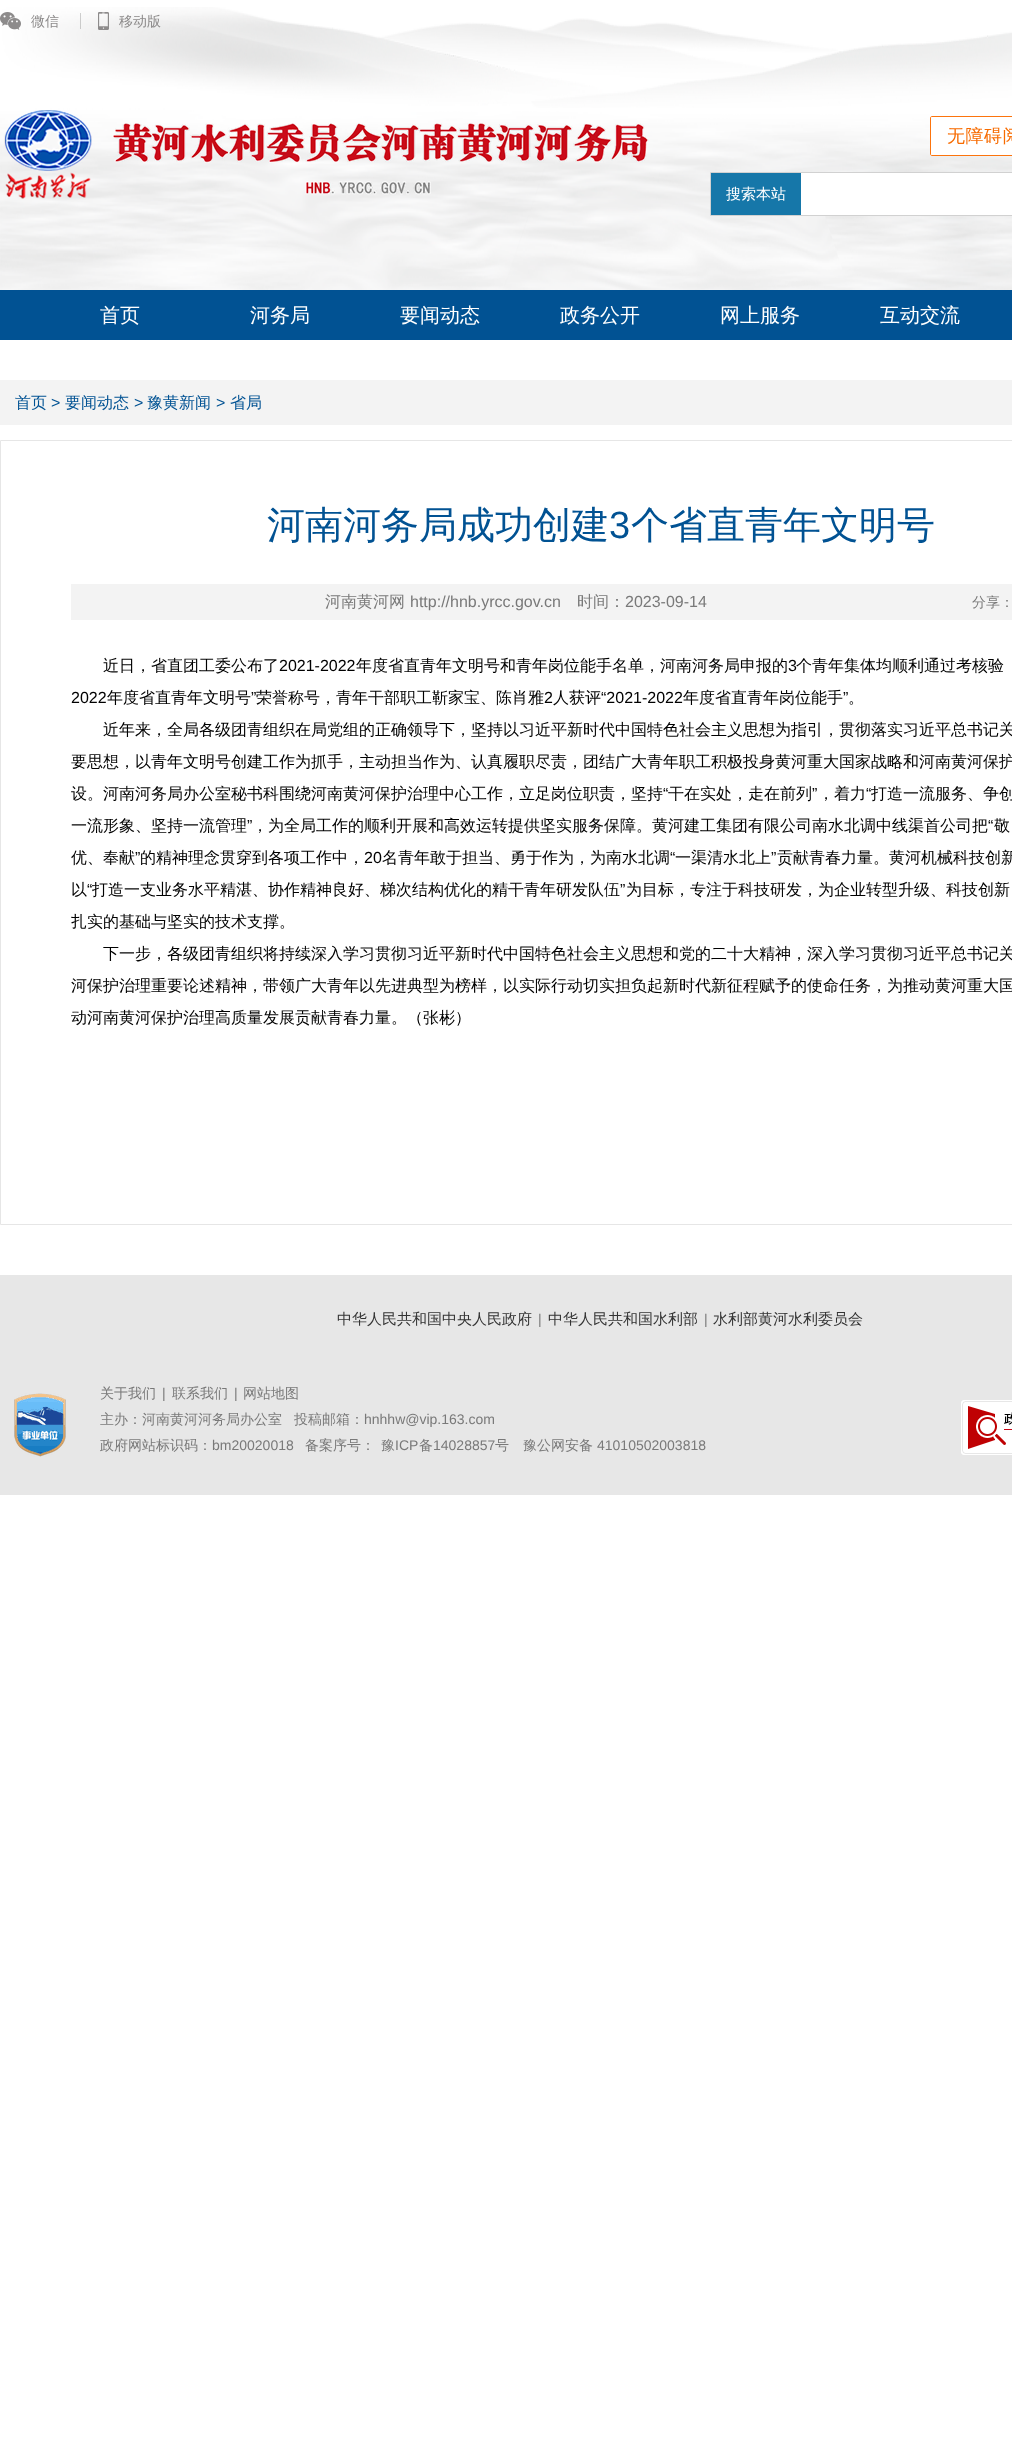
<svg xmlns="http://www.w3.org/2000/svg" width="1012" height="2451">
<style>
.a{font:500 14px WenQuanYi Zen Hei;fill:#8d8b8b}
.b{font:500 18px WenQuanYi Zen Hei;letter-spacing:0.5px;fill:#f76b00}
.c{font:500 15px WenQuanYi Zen Hei;fill:#fff}
.d{font:500 20px WenQuanYi Zen Hei;fill:#fff}
.e{font:500 16px WenQuanYi Zen Hei;fill:#015293}
.f{font:16px Liberation Sans;fill:#015293}
.g{font:500 38px WenQuanYi Zen Hei;fill:#015293}
.h{font:38px Liberation Sans;fill:#015293}
.i{font:500 16px WenQuanYi Zen Hei;fill:#797979}
.j{font:16px Liberation Sans;fill:#797979}
.k{font:500 14px WenQuanYi Zen Hei;fill:#797979}
.l{font:500 16px WenQuanYi Zen Hei;fill:#000}
.m{font:16px Liberation Sans;fill:#000}
.n{font:500 15px WenQuanYi Zen Hei;fill:#333}
.o{font:14px Liberation Sans;fill:#797979}
</style>
<rect width="100%" height="100%" fill="#fff"/>
<image href="1.png" x="0" y="7" width="1012" height="283"/>
<image href="2.png" x="0" y="12" width="21" height="18"/>
<path fill="#6666664d" d="M80 13h1v16H80z"/>
<image href="3.png" x="98" y="12" width="11" height="18"/>
<image href="4.png" x="4" y="110" width="645" height="89"/>
<path fill="#fff" stroke="#fc740d" d="M932 116.5h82.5v39h-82.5c-1 0-1.5-.5-1.5-1.5v-36c0-1 .5-1.5 1.5-1.5z"/>
<path fill="#fff" d="M801 173h211v42H801z"/>
<path fill="none" stroke="#d1d1d1" d="M710.5 172.5h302v43H710.5z"/>
<path fill="#1677a9" d="M711 173h90v42H711z"/>
<path fill="#015293" d="M0 290h1012v50H0z"/>
<path fill="#f3f3f3" d="M0 380h1012v45H0z"/>
<path fill="none" stroke="#e6e6e6" d="M0.5 440.5h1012v784H0.5z"/>
<path fill="#f3f3f3" d="M71 584h941v36H71z"/>
<path fill="#e7e7e7" d="M0 1275h1012v220H0z"/>
<image href="5.png" x="14" y="1393" width="52" height="64"/>
<image href="6.png" x="961" y="1400" width="51" height="55"/>
<text class="a" x="31" y="26">微信</text>
<text class="a" x="119" y="26">移动版</text>
<text class="b" x="947" y="142">无障碍阅</text>
<text class="c" x="726" y="199">搜索本站</text>
<text class="d" x="100" y="322">首页</text>
<text class="d" x="250" y="322">河务局</text>
<text class="d" x="400" y="322">要闻动态</text>
<text class="d" x="560" y="322">政务公开</text>
<text class="d" x="720" y="322">网上服务</text>
<text class="d" x="880" y="322">互动交流</text>
<text class="e" x="15" y="408">首页</text>
<text class="f" x="51" y="408">&gt;</text>
<text class="e" x="65" y="408">要闻动态</text>
<text class="f" x="134" y="408">&gt;</text>
<text class="e" x="147" y="408">豫黄新闻</text>
<text class="f" x="216" y="408">&gt;</text>
<text class="e" x="230" y="408">省局</text>
<text class="g" x="267" y="538">河南河务局成功创建</text>
<text class="h" x="609" y="538">3</text>
<text class="g" x="631" y="538">个省直青年文明号</text>
<text class="i" x="325" y="607">河南黄河网</text>
<text class="j" x="410" y="607">http://hnb.yrcc.gov.cn</text>
<text class="i" x="577" y="607">时间：</text>
<text class="j" x="625" y="607">2023-09-14</text>
<text class="k" x="972" y="607">分享：</text>
<text class="l" x="103" y="671">近日，省直团工委公布了</text>
<text class="m" x="279" y="671">2021-2022</text>
<text class="l" x="356" y="671">年度省直青年文明号和青年岗位能手名单，河南河务局申报的</text>
<text class="m" x="788" y="671">3</text>
<text class="l" x="796" y="671">个青年集体均顺利通过考核验</text>
<text class="m" x="71" y="703">2022</text>
<text class="l" x="107" y="703">年度省直青年文明号</text>
<text class="m" x="251" y="703">”</text>
<text class="l" x="256" y="703">荣誉称号，青年干部职工靳家宝、陈肖雅</text>
<text class="m" x="544" y="703">2</text>
<text class="l" x="553" y="703">人获评</text>
<text class="m" x="601" y="703">“2021-2022</text>
<text class="l" x="683" y="703">年度省直青年岗位能手</text>
<text class="m" x="843" y="703">”</text>
<text class="l" x="848" y="703">。</text>
<text class="l" x="103" y="735">近年来，全局各级团青组织在局党组的正确领导下，坚持以习近平新时代中国特色社会主义思想为指引，贯彻落实习近平总书记关</text>
<text class="l" x="71" y="767">要思想，以青年文明号创建工作为抓手，主动担当作为、认真履职尽责，团结广大青年职工积极投身黄河重大国家战略和河南黄河保护</text>
<text class="l" x="71" y="799">设。河南河务局办公室秘书科围绕河南黄河保护治理中心工作，立足岗位职责，坚持</text>
<text class="m" x="663" y="799">“</text>
<text class="l" x="668" y="799">干在实处，走在前列</text>
<text class="m" x="812" y="799">”</text>
<text class="l" x="818" y="799">，着力</text>
<text class="m" x="866" y="799">“</text>
<text class="l" x="871" y="799">打造一流服务、争创</text>
<text class="l" x="71" y="831">一流形象、坚持一流管理</text>
<text class="m" x="247" y="831">”</text>
<text class="l" x="252" y="831">，为全局工作的顺利开展和高效运转提供坚实服务保障。黄河建工集团有限公司南水北调中线渠首公司把</text>
<text class="m" x="988" y="831">“</text>
<text class="l" x="994" y="831">敬</text>
<text class="l" x="71" y="863">优、奉献</text>
<text class="m" x="135" y="863">”</text>
<text class="l" x="140" y="863">的精神理念贯穿到各项工作中，</text>
<text class="m" x="364" y="863">20</text>
<text class="l" x="382" y="863">名青年敢于担当、勇于作为，为南水北调</text>
<text class="m" x="670" y="863">“</text>
<text class="l" x="675" y="863">一渠清水北上</text>
<text class="m" x="771" y="863">”</text>
<text class="l" x="777" y="863">贡献青春力量。黄河机械科技创新</text>
<text class="l" x="71" y="895">以</text>
<text class="m" x="87" y="895">“</text>
<text class="l" x="92" y="895">打造一支业务水平精湛、协作精神良好、梯次结构优化的精干青年研发队伍</text>
<text class="m" x="620" y="895">”</text>
<text class="l" x="626" y="895">为目标，专注于科技研发，为企业转型升级、科技创新</text>
<text class="l" x="71" y="927">扎实的基础与坚实的技术支撑。</text>
<text class="l" x="103" y="959">下一步，各级团青组织将持续深入学习贯彻习近平新时代中国特色社会主义思想和党的二十大精神，深入学习贯彻习近平总书记关</text>
<text class="l" x="71" y="991">河保护治理重要论述精神，带领广大青年以先进典型为榜样，以实际行动切实担负起新时代新征程赋予的使命任务，为推动黄河重大国</text>
<text class="l" x="71" y="1023">动河南黄河保护治理高质量发展贡献青春力量。（张彬）</text>
<text class="n" x="337" y="1324">中华人民共和国中央人民政府</text>
<text class="o" x="538" y="1324">|</text>
<text class="n" x="548" y="1324">中华人民共和国水利部</text>
<text class="o" x="704" y="1324">|</text>
<text class="n" x="713" y="1324">水利部黄河水利委员会</text>
<text class="k" x="100" y="1398">关于我们</text>
<text class="o" x="162" y="1398">|</text>
<text class="k" x="172" y="1398">联系我们</text>
<text class="o" x="234" y="1398">|</text>
<text class="k" x="243" y="1398">网站地图</text>
<text class="k" x="100" y="1424">主办：河南黄河河务局办公室</text>
<text class="k" x="294" y="1424">投稿邮箱：</text>
<text class="o" x="364" y="1424">hnhhw@vip.163.com</text>
<text class="k" x="100" y="1450">政府网站标识码：</text>
<text class="o" x="212" y="1450">bm20020018</text>
<text class="k" x="305" y="1450">备案序号：</text>
<text class="k" x="381" y="1450">豫</text>
<text class="o" x="395" y="1450">ICP</text>
<text class="k" x="419" y="1450">备</text>
<text class="o" x="433" y="1450">14028857</text>
<text class="k" x="495" y="1450">号</text>
<text class="k" x="523" y="1450">豫公网安备</text>
<text class="o" x="597" y="1450">41010502003818</text>
</svg>
